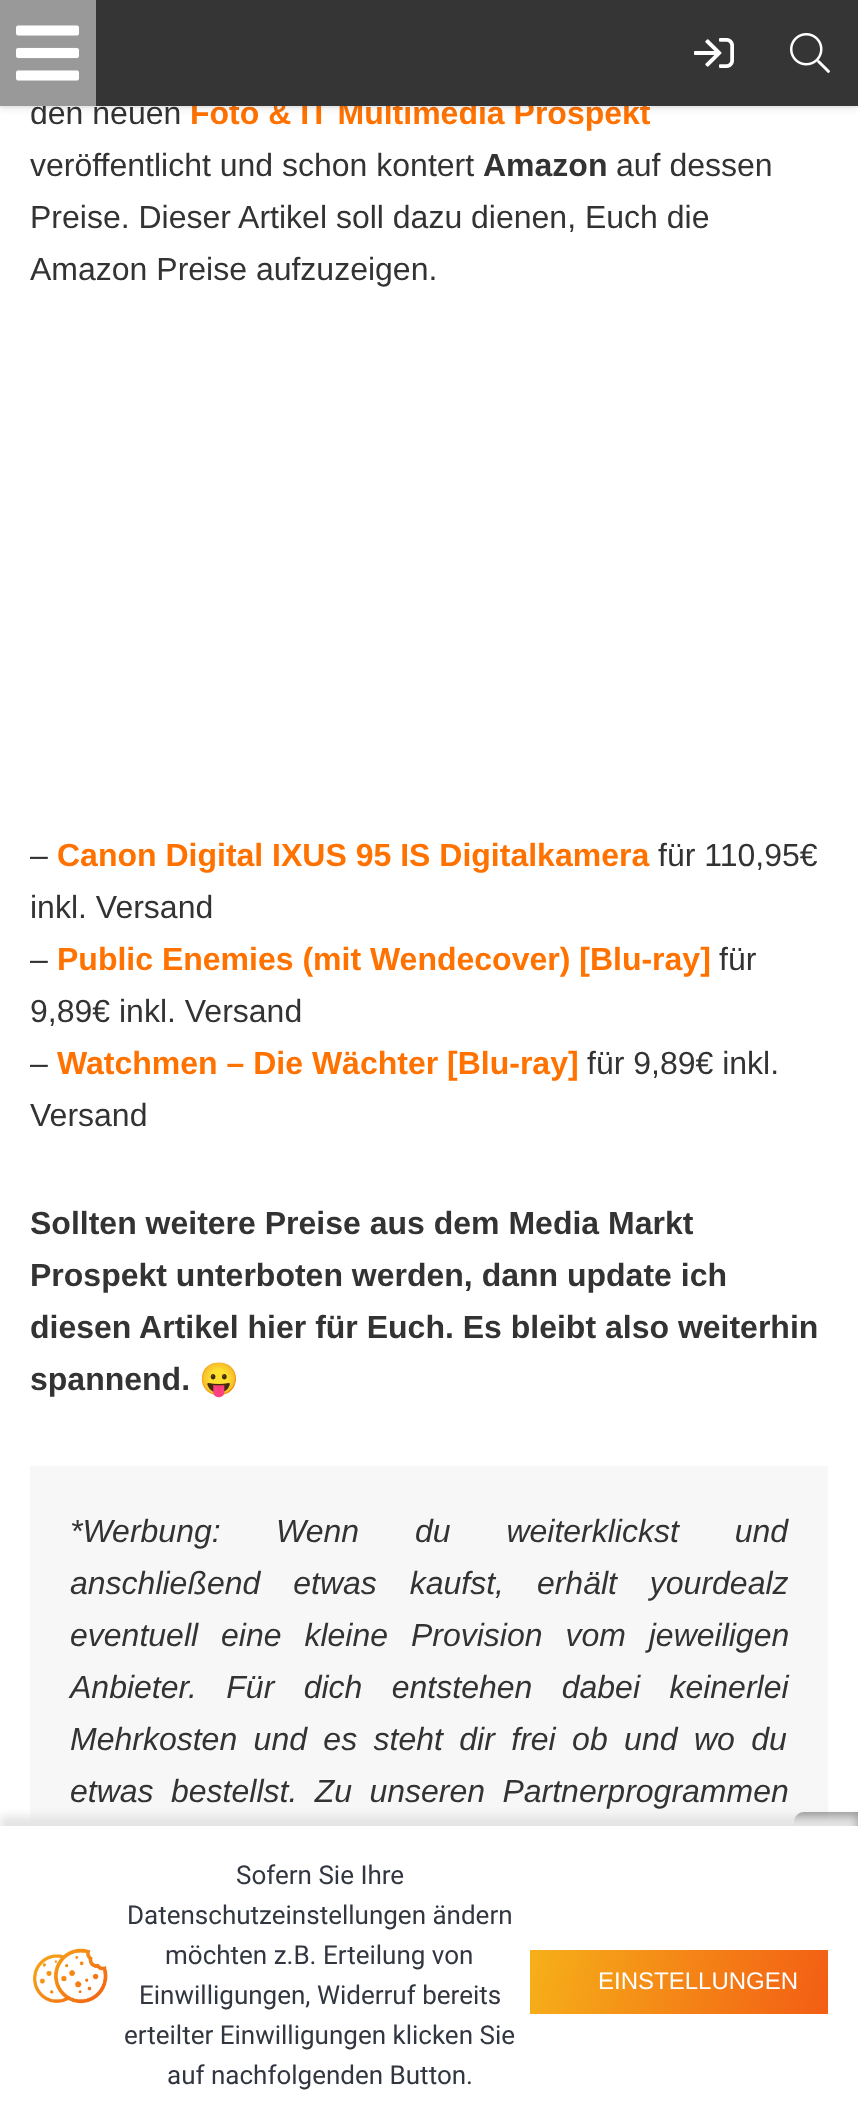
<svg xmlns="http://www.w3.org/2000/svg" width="858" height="2125">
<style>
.a{font:32px Liberation Sans;fill:#333}
.b{font:bold 32px Liberation Sans;fill:#ff7200}
.c{font:bold 32px Liberation Sans;fill:#333}
.d{font:bold 32px Noto Color Emoji;fill:#333}
.e{font:italic 32px Liberation Sans;fill:#333}
.f{font:26px Roboto;fill:#323640}
.g{font:24px Liberation Sans;fill:#fff}
</style>
<defs>
<linearGradient id="g1" gradientUnits="userSpaceOnUse" x1="531" y1="1945" x2="827" y2="2019"><stop offset="0" stop-color="#f6b019"/><stop offset="1" stop-color="#f35d14"/></linearGradient>
</defs>
<rect width="100%" height="100%" fill="#fff"/>
<path fill="#f7f7f7" d="M30 1466h798v360H30z"/>
<path fill="#00000066" d="M804 1812h54v64h-54c-5.5 0-10-4.5-10-10v-44c0-5.5 4.5-10 10-10z"/>
<path fill="#e4e4e4" filter="blur(5px)" d="M0 1816h858v300H0z"/>
<path fill="#fff" d="M0 1826h858v297H0z"/>
<image href="4.png" x="33" y="1948" width="75" height="56"/>
<path fill="url(#g1)" d="M530 1950h298v64H530z"/>
<text class="a" x="30" y="124">den neuen</text>
<text class="b" x="190" y="124">Foto &amp; IT Multimedia Prospekt</text>
<path fill="none" stroke="#00000008" stroke-width="2" d="M-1 -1h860v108H-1z"/>
<path fill="#0000001a" filter="blur(4px)" d="M0 2h858v106H0z"/>
<path fill="#353535" d="M96 0h762v106H96z"/>
<image href="2.png" x="694" y="38" width="40" height="30"/>
<path fill="#999" d="M0 0h96v106H0z"/>
<image href="1.png" x="16" y="25" width="63" height="56"/>
<image href="3.png" x="790" y="33" width="40" height="40"/>
<text class="a" x="30" y="176">veröffentlicht und schon kontert</text>
<text class="c" x="483" y="176">Amazon</text>
<text class="a" x="616" y="176">auf dessen</text>
<text class="a" x="30" y="228">Preise. Dieser Artikel soll dazu dienen, Euch die</text>
<text class="a" x="30" y="280">Amazon Preise aufzuzeigen.</text>
<text class="a" x="30" y="866">–</text>
<text class="b" x="57" y="866">Canon Digital IXUS 95 IS Digitalkamera</text>
<text class="a" x="658" y="866">für 110,95€</text>
<text class="a" x="30" y="918">inkl. Versand</text>
<text class="a" x="30" y="970">–</text>
<text class="b" x="57" y="970">Public Enemies (mit Wendecover) [Blu-ray]</text>
<text class="a" x="719" y="970">für</text>
<text class="a" x="30" y="1022">9,89€ inkl. Versand</text>
<text class="a" x="30" y="1074">–</text>
<text class="b" x="57" y="1074">Watchmen – Die Wächter [Blu-ray]</text>
<text class="a" x="587" y="1074">für 9,89€ inkl.</text>
<text class="a" x="30" y="1126">Versand</text>
<text class="c" x="30" y="1234">Sollten weitere Preise aus dem Media Markt</text>
<text class="c" x="30" y="1286">Prospekt unterboten werden, dann update ich</text>
<text class="c" x="30" y="1338">diesen Artikel hier für Euch. Es bleibt also weiterhin</text>
<text class="c" x="30" y="1390">spannend.</text>
<text class="d" x="199" y="1390">😛</text>
<text class="e" x="70" y="1542">*Werbung:</text>
<text class="e" x="276" y="1542" word-spacing="47">Wenn du weiterklickst und</text>
<text class="e" x="70" y="1594" word-spacing="24">anschließend etwas kaufst, erhält yourdealz</text>
<text class="e" x="70" y="1646" word-spacing="14">eventuell eine kleine Provision vom jeweiligen</text>
<text class="e" x="70" y="1698" word-spacing="20.5">Anbieter. Für dich entstehen dabei keinerlei</text>
<text class="e" x="70" y="1750" word-spacing="7.5">Mehrkosten und es steht dir frei ob und wo du</text>
<text class="e" x="70" y="1802" word-spacing="8.5">etwas bestellst. Zu unseren Partnerprogrammen</text>
<text class="f" x="236" y="1884">Sofern Sie Ihre</text>
<text class="f" x="127" y="1924">Datenschutzeinstellungen ändern</text>
<text class="f" x="165" y="1964">möchten z.B. Erteilung von</text>
<text class="f" x="139" y="2004">Einwilligungen, Widerruf bereits</text>
<text class="f" x="124" y="2044">erteilter Einwilligungen klicken Sie</text>
<text class="f" x="167" y="2084">auf nachfolgenden Button.</text>
<text class="g" x="598" y="1989">EINSTELLUNGEN</text>
</svg>
